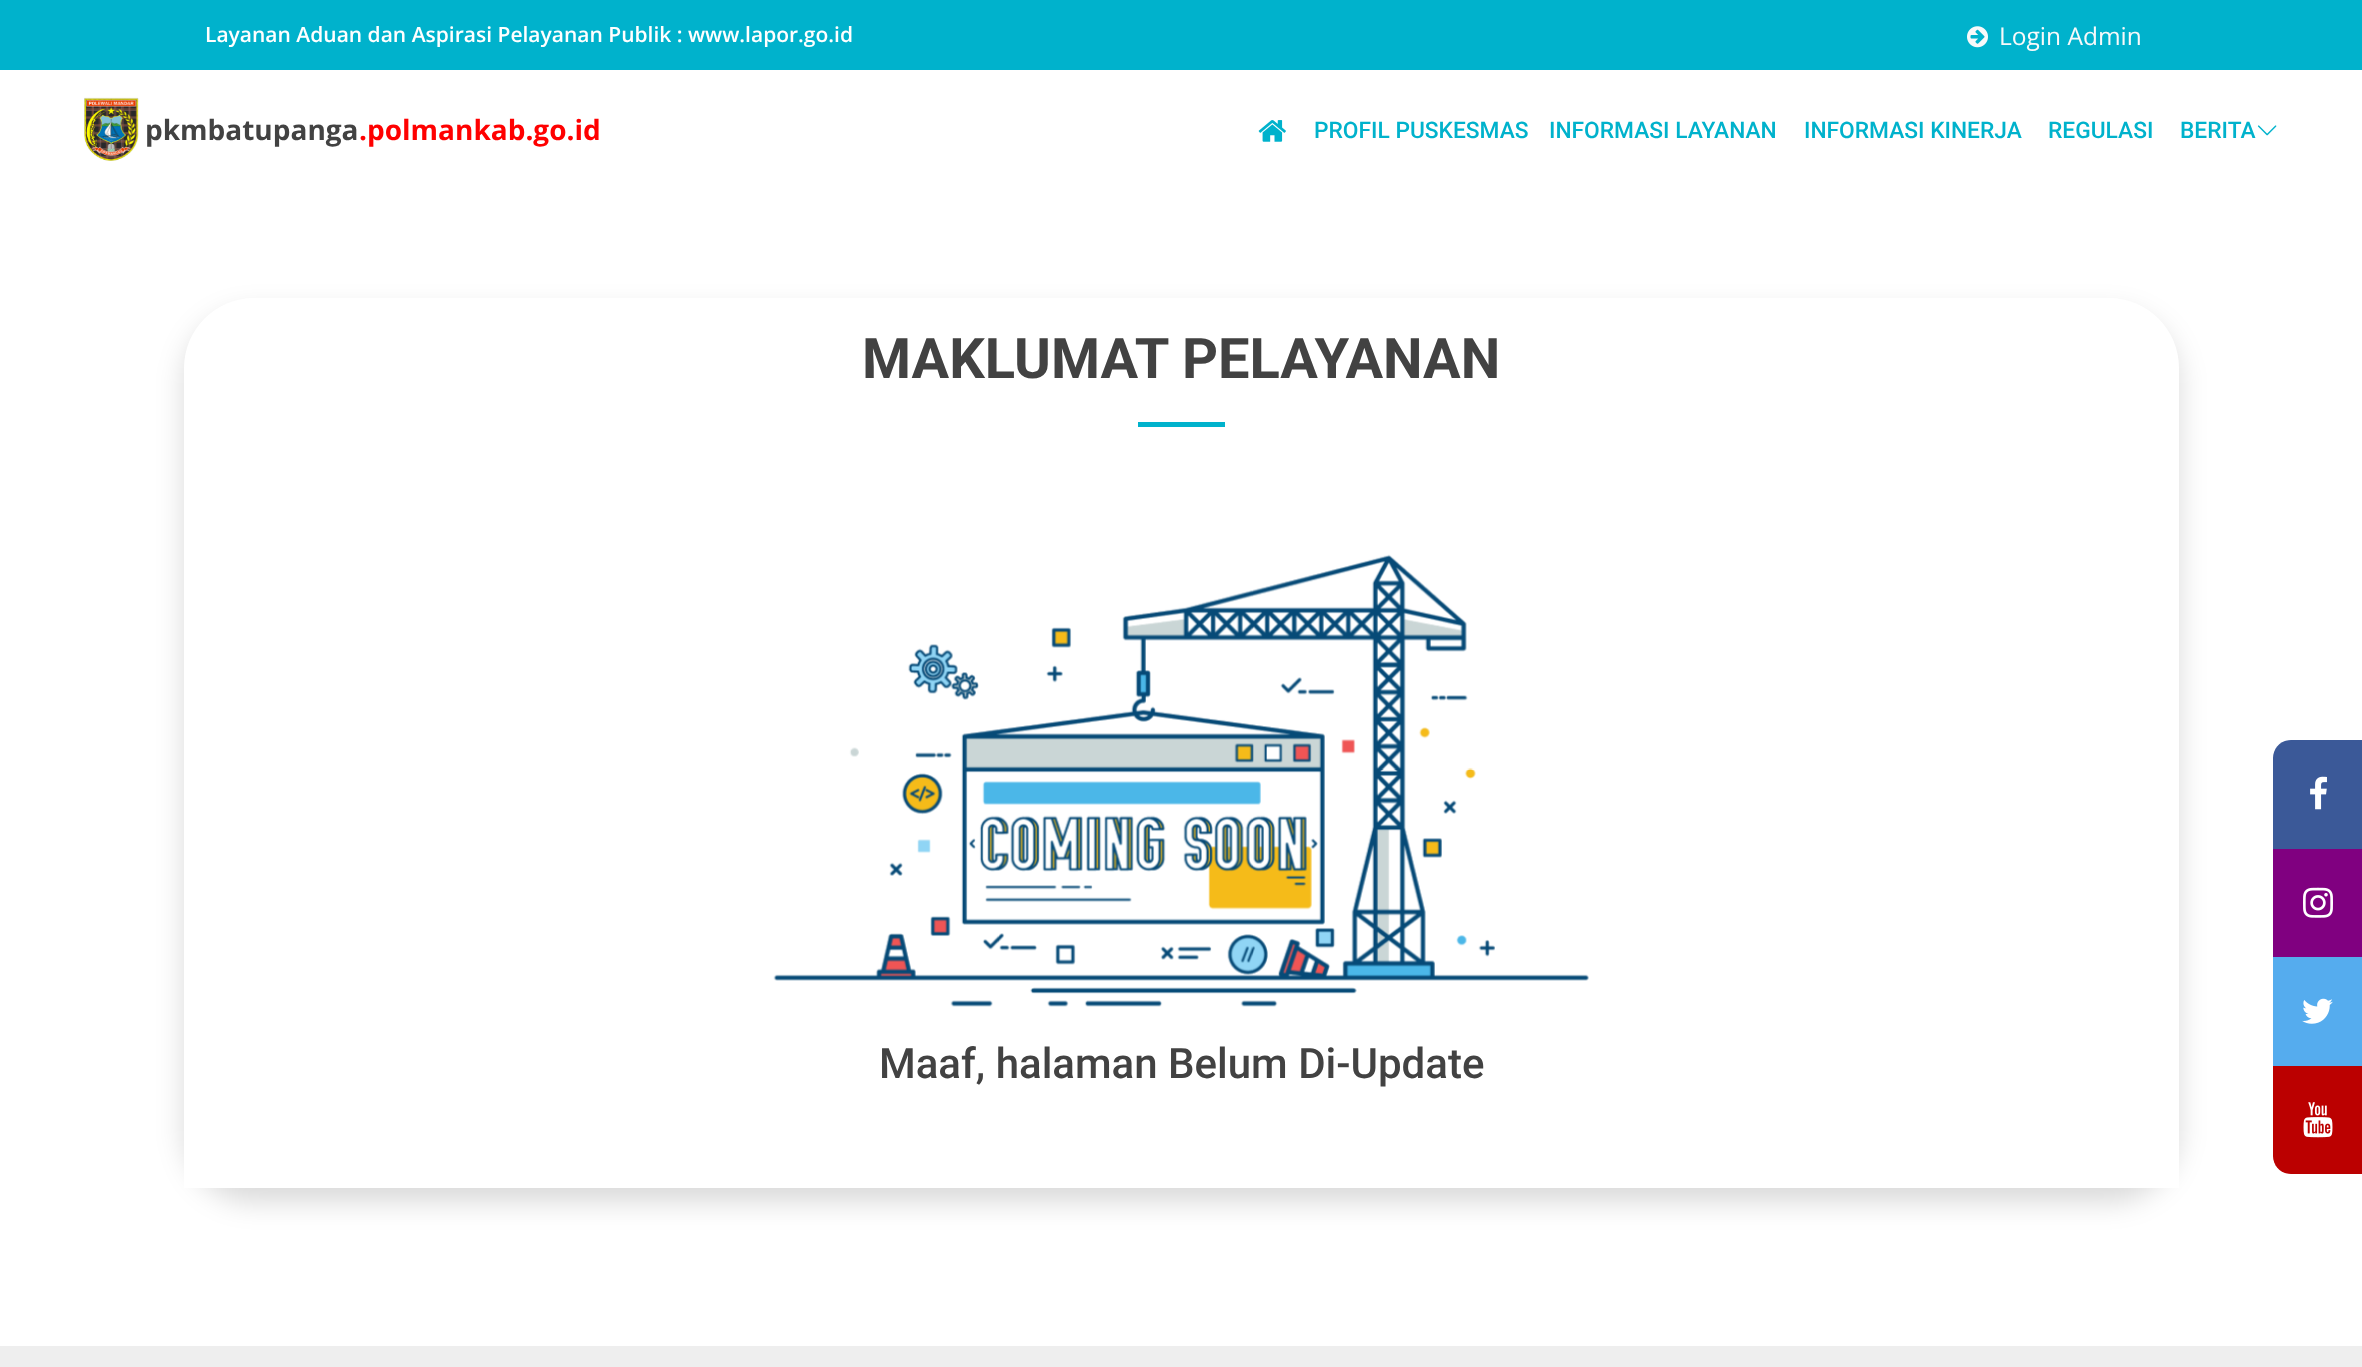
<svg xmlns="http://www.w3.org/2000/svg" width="2362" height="1367">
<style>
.a{font:600 21px Open Sans;fill:#fff}
.b{font:24.5px Open Sans;fill:#f8f9fa}
.c{font:bold 28px Open Sans;fill:#424242}
.d{font:bold 28px Open Sans;fill:#f00}
.e{font:500 22.75px Roboto;fill:#00b2cc}
.f{font:bold 56px Roboto;fill:#424242}
.g{font:500 42px Roboto;fill:#424242}
</style>
<rect width="100%" height="100%" fill="#fff"/>
<path fill="#00b2cc" d="M0 0h2362v70H0z"/>
<image href="1.png" x="1967" y="26" width="21" height="22"/>
<image href="2.png" x="84" y="97" width="55" height="64"/>
<image href="3.png" x="1258" y="120" width="28" height="22"/>
<image href="4.png" x="2257" y="125" width="20" height="11"/>
<rect fill="#00000026" filter="blur(14px)" x="184" y="312" width="1995" height="890" rx="70"/>
<path fill="#fff" d="M254 298h1855c38.5 0 70 31.5 70 70v820h-1995v-820c0-38.5 31.5-70 70-70z"/>
<path fill="#00b2cc" d="M1138 422h87v5H1138z"/>
<image href="5.png" x="773" y="554" width="816" height="453"/>
<path fill="#eee" d="M0 1346h2362v21H0z"/>
<path fill="#3b5998" d="M2291 740h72v109h-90v-91c0-10 8-18 18-18z"/>
<image href="6.png" x="2310" y="776" width="17" height="34"/>
<path fill="#800080" d="M2273 849h89v108H2273z"/>
<image href="7.png" x="2303" y="887" width="30" height="31"/>
<path fill="#55acee" d="M2273 957h89v109H2273z"/>
<image href="8.png" x="2302" y="998" width="31" height="26"/>
<path fill="#b00" d="M2273 1066h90v108h-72c-10 0-18-8-18-18z"/>
<image href="9.png" x="2303" y="1102" width="30" height="36"/>
<text class="a" x="205" y="42">Layanan Aduan dan Aspirasi Pelayanan Publik : www.lapor.go.id</text>
<text class="b" x="1999" y="45">Login Admin</text>
<text class="c" x="145" y="140">pkmbatupanga</text>
<text class="d" x="359" y="140">.polmankab.go.id</text>
<text class="e" x="1314" y="138">PROFIL PUSKESMAS</text>
<text class="e" x="1549" y="138">INFORMASI LAYANAN</text>
<text class="e" x="1804" y="138">INFORMASI KINERJA</text>
<text class="e" x="2048" y="138">REGULASI</text>
<text class="e" x="2180" y="138">BERITA</text>
<text class="f" x="862" y="378">MAKLUMAT PELAYANAN</text>
<text class="g" x="879" y="1078">Maaf, halaman Belum Di-Update</text>
</svg>
